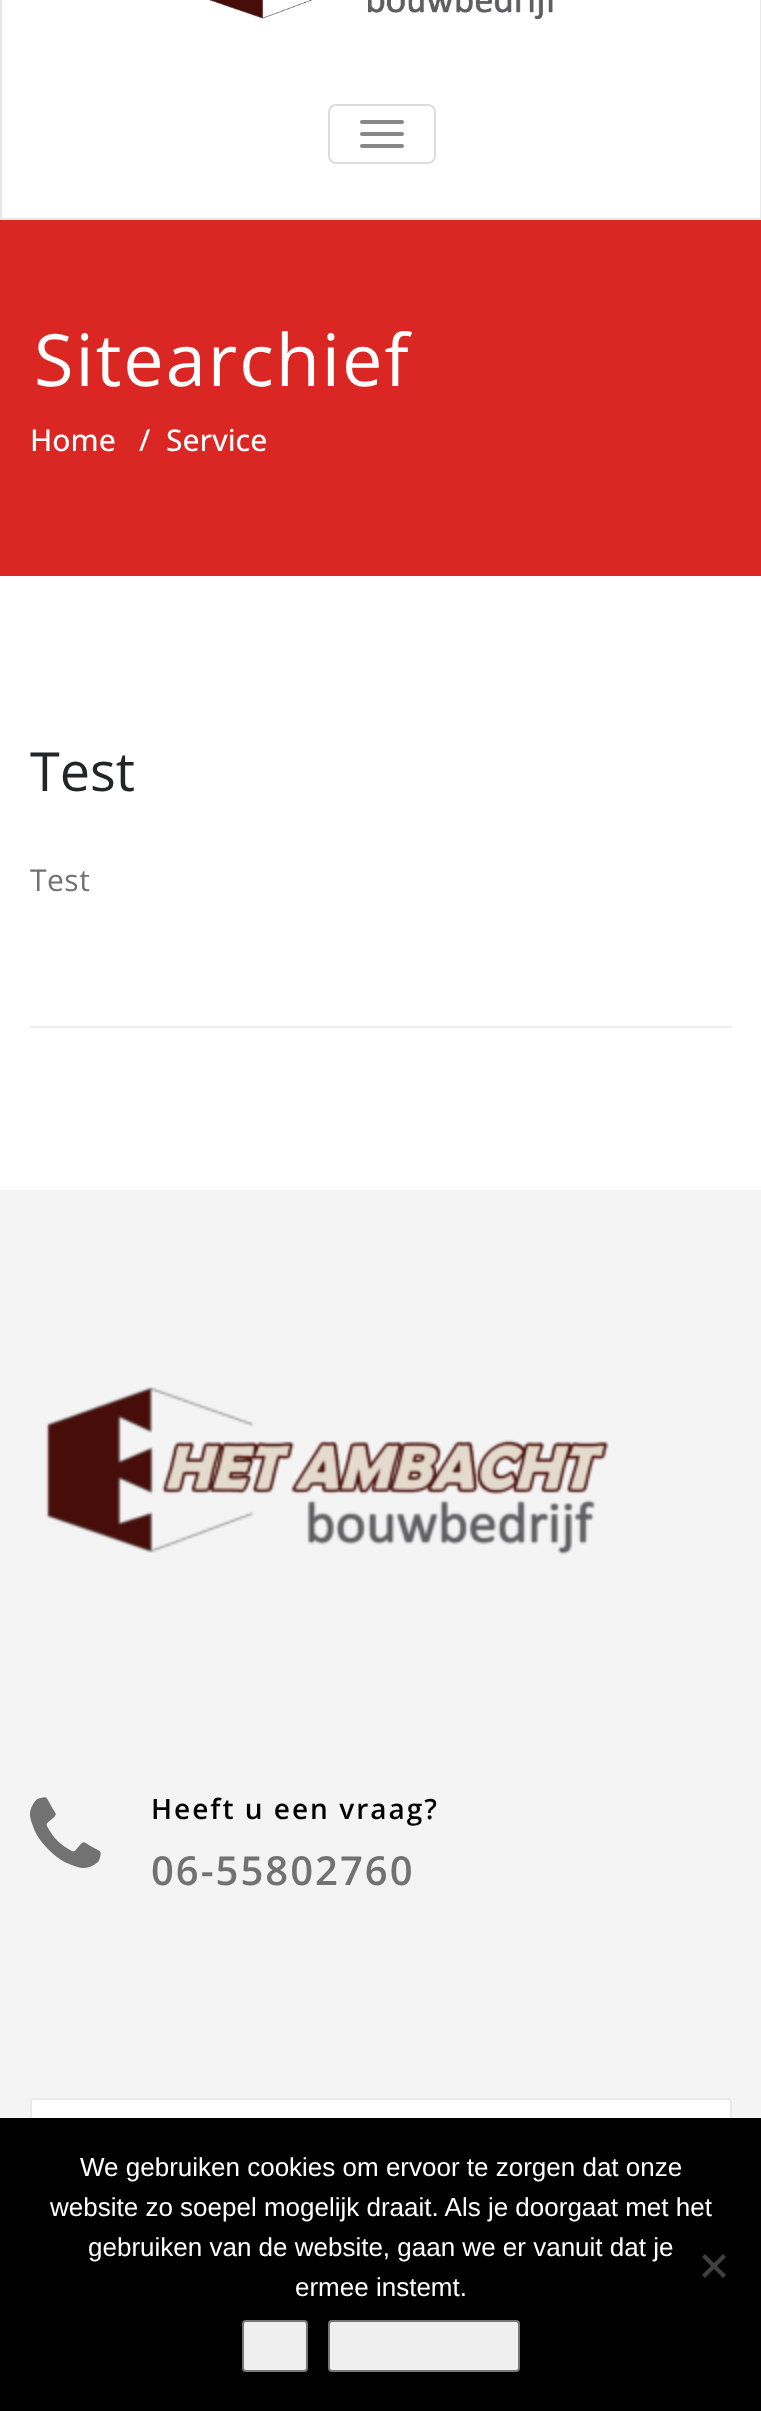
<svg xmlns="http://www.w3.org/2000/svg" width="761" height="2411">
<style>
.a{font:72px Open Sans;letter-spacing:2px;fill:#fff}
.b{font:500 30px Open Sans;fill:#fff}
.c{font:54px Open Sans;fill:#242526}
.d{font:30px Open Sans;letter-spacing:0.5px;fill:#727272}
.e{font:600 28px Open Sans;letter-spacing:2px;fill:#000}
.f{font:600 40px Open Sans;letter-spacing:2px;fill:#727272}
.g{font:26px Liberation Sans;fill:#fff}
</style>
<rect width="100%" height="100%" fill="#fff"/>
<path fill="none" stroke="#e7e7e7" stroke-width="2" d="M1 -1h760v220H1z"/>
<image href="1.png" x="209" y="0" width="344" height="20"/>
<rect fill="none" stroke="#ddd" stroke-width="2" x="329" y="105" width="106" height="58" rx="7"/>
<rect fill="#888" x="360" y="120" width="44" height="4" rx="2"/>
<rect fill="#888" x="360" y="132" width="44" height="4" rx="2"/>
<rect fill="#888" x="360" y="144" width="44" height="4" rx="2"/>
<path fill="#db2723" d="M0 220h761v356H0z"/>
<path fill="#eee" d="M30 1026h702v2H30z"/>
<path fill="#f4f4f4" d="M0 1190h761v928H0z"/>
<image href="2.png" x="45" y="1386" width="564" height="169"/>
<image href="3.png" x="30" y="1797" width="71" height="71"/>
<rect fill="#fff" stroke="#e9e9e9" stroke-width="2" x="31" y="2099" width="700" height="88" rx="3"/>
<path fill="#000" d="M0 2118h761v293H0z"/>
<path fill="#404040" d="M723 2254l3 3l-21 21l-3-3z"/>
<path fill="#404040" d="M702 2257l3-3l21 21l-3 3z"/>
<rect fill="#efefef" stroke="#767676" stroke-width="2" x="243" y="2321" width="64" height="50" rx="3"/>
<rect fill="#efefef" stroke="#767676" stroke-width="2" x="329" y="2321" width="190" height="50" rx="3"/>
<text class="a" x="34" y="386">Sitearchief</text>
<text class="b" x="30" y="451">Home</text>
<text class="b" x="139" y="451">/</text>
<text class="b" x="166" y="451">Service</text>
<text class="c" x="30" y="791">Test</text>
<text class="d" x="30" y="891">Test</text>
<text class="e" x="151" y="1819">Heeft u een vraag?</text>
<text class="f" x="151" y="1885">06-55802760</text>
<text class="g" x="80" y="2176">We gebruiken cookies om ervoor te zorgen dat onze</text>
<text class="g" x="50" y="2216">website zo soepel mogelijk draait. Als je doorgaat met het</text>
<text class="g" x="88" y="2256">gebruiken van de website, gaan we er vanuit dat je</text>
<text class="g" x="295" y="2296">ermee instemt.</text>
</svg>
